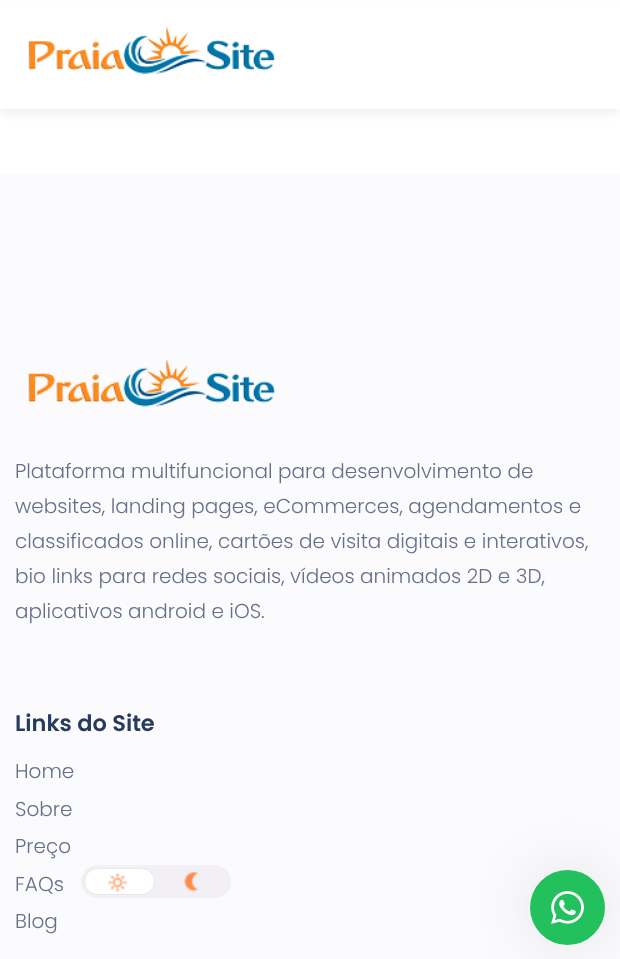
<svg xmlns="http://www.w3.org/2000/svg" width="620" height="959">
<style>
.a{font:300 20px Poppins;fill:#656f88}
.b{font:600 22.5px Poppins;fill:#263b5e}
</style>
<rect width="100%" height="100%" fill="#fff"/>
<path fill="#0c002e0f" filter="blur(4px)" d="M0 5h620v109H0z"/>
<path fill="#fff" d="M0 1h620v108H0z"/>
<image href="1.png" x="28" y="26" width="248" height="48"/>
<path fill="#fbfbfd" d="M0 173h620v786H0z"/>
<image href="2.png" x="28" y="359" width="248" height="48"/>
<rect fill="#f2f0f4" x="81" y="865" width="150" height="33" rx="16.5"/>
<rect fill="#fff" stroke="#e7e7e7" x="84.5" y="868.5" width="70" height="26" rx="13"/>
<image href="3.png" x="108" y="873" width="19" height="20"/>
<image href="4.png" x="184" y="872" width="15" height="20"/>
<rect fill="#0000001a" filter="blur(31px)" x="530" y="870" width="75" height="75" rx="37.5"/>
<circle fill="#22c15e" cx="567.5" cy="907.5" r="37.5"/>
<image href="5.png" x="551" y="891" width="33" height="33"/>
<text class="a" x="15" y="478">Plataforma multifuncional para desenvolvimento de</text>
<text class="a" x="15" y="513">websites, landing pages, eCommerces, agendamentos e</text>
<text class="a" x="15" y="548">classificados online, cartões de visita digitais e interativos,</text>
<text class="a" x="15" y="583">bio links para redes sociais, vídeos animados 2D e 3D,</text>
<text class="a" x="15" y="618">aplicativos android e iOS.</text>
<text class="b" x="15" y="731">Links do Site</text>
<text class="a" x="15" y="778">Home</text>
<text class="a" x="15" y="816">Sobre</text>
<text class="a" x="15" y="853">Preço</text>
<text class="a" x="15" y="891">FAQs</text>
<text class="a" x="15" y="928">Blog</text>
</svg>
